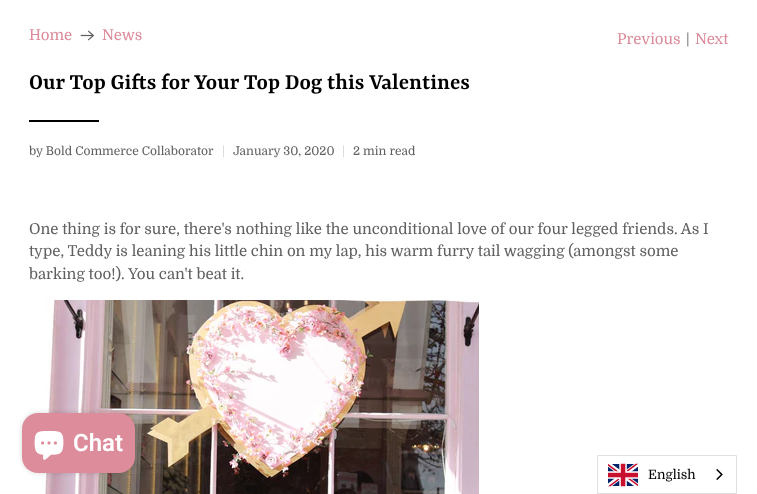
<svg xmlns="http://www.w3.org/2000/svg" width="757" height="494">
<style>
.a{font:15px Domine;fill:#dc8c9a}
.b{font:15px Domine;fill:#606060}
.c{font:600 24px Yrsa;fill:#000}
.d{font:12px Domine;fill:#606060}
.e{font:12px Domine;fill:#cfcfcf}
.f{font:600 24px Roboto;fill:#fff}
.g{font:13px Domine;fill:#000}
</style>
<rect width="100%" height="100%" fill="#fff"/>
<image href="1.png" x="80" y="30" width="15" height="11"/>
<path fill="#000" d="M29 120h70v2H29z"/>
<image href="2.png" x="45" y="300" width="434" height="194"/>
<rect fill="#00000026" filter="blur(2.5px)" x="22" y="413" width="113" height="60" rx="16"/>
<rect fill="#dc8c9a" x="22" y="413" width="113" height="60" rx="16"/>
<image href="3.png" x="34" y="431" width="30" height="29"/>
<path fill="none" stroke="#e0e0e0" d="M597.5 455.5h139v38H597.5z"/>
<image href="4.png" x="608" y="463" width="30" height="24"/>
<image href="5.png" x="716" y="469" width="7" height="11"/>
<text class="a" x="29" y="40">Home</text>
<text class="a" x="102" y="40">News</text>
<text class="a" x="617" y="44">Previous</text>
<text class="b" x="686" y="44">|</text>
<text class="a" x="695" y="44">Next</text>
<text class="c" x="29" y="89">Our Top Gifts for Your Top Dog this Valentines</text>
<text class="d" x="29" y="155">by Bold Commerce Collaborator</text>
<text class="e" x="222" y="155">|</text>
<text class="d" x="233" y="155">January 30, 2020</text>
<text class="e" x="342" y="155">|</text>
<text class="d" x="353" y="155">2 min read</text>
<text class="b" x="29" y="234">One thing is for sure, there's nothing like the unconditional love of our four legged friends. As I</text>
<text class="b" x="29" y="256">type, Teddy is leaning his little chin on my lap, his warm furry tail wagging (amongst some</text>
<text class="b" x="29" y="279">barking too!). You can't beat it.</text>
<text class="f" x="73" y="451">Chat</text>
<text class="g" x="648" y="479">English</text>
</svg>
